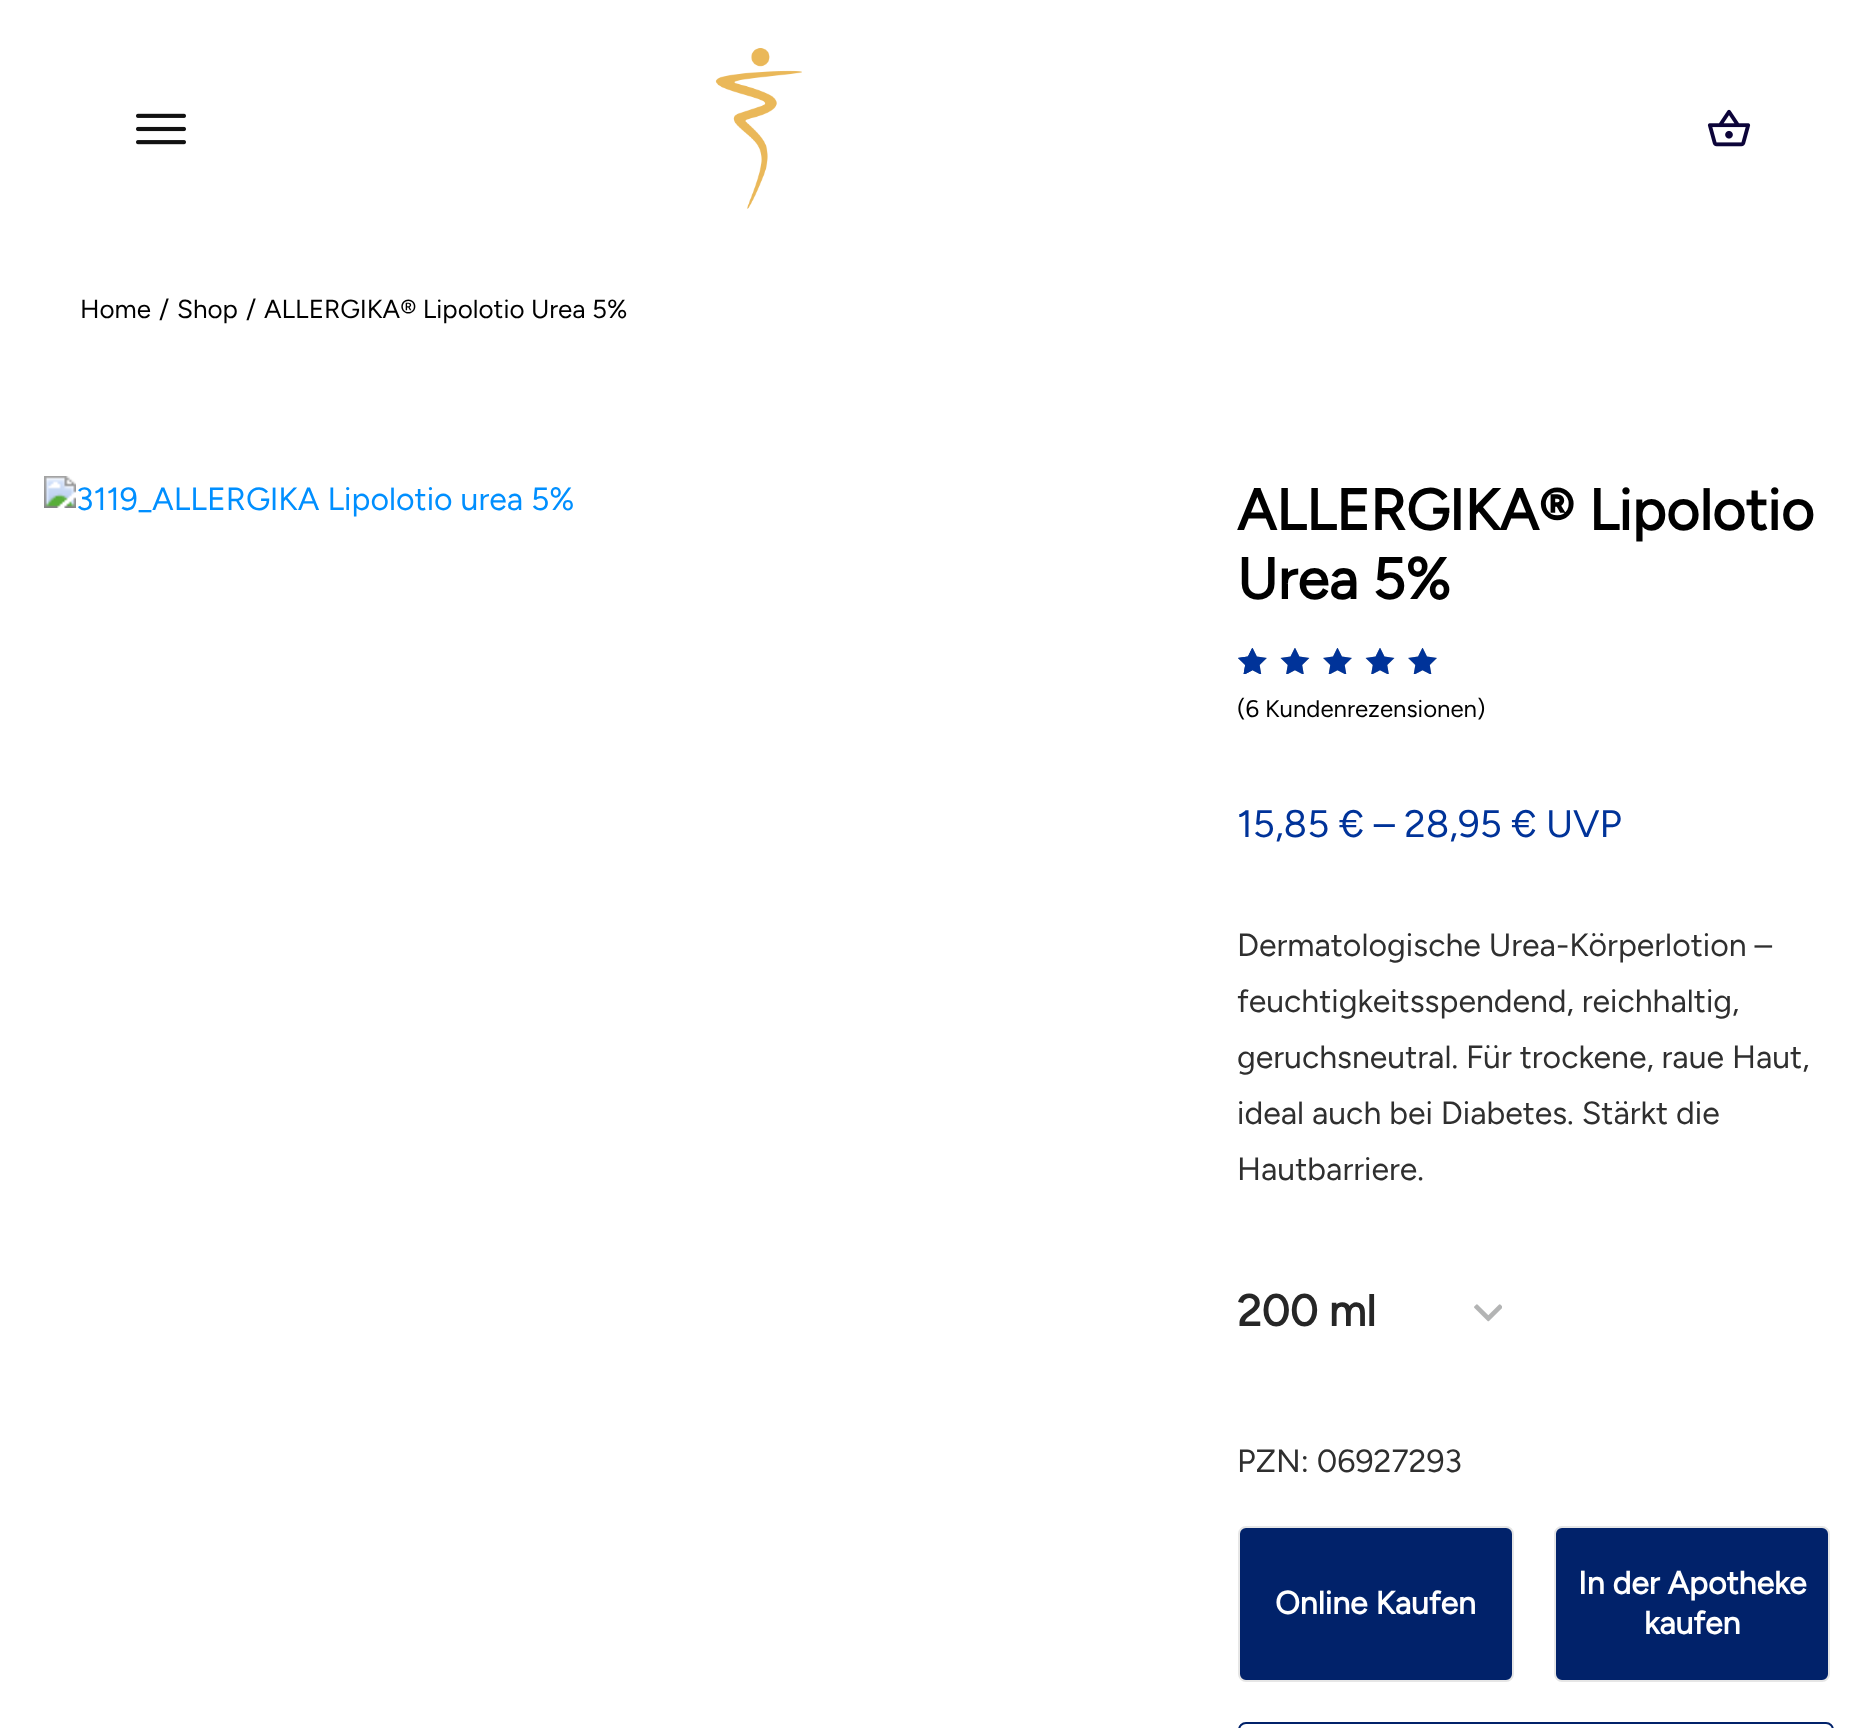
<svg xmlns="http://www.w3.org/2000/svg" width="1873" height="1728">
<style>
.a{font:26px Figtree;fill:#000}
.b{font:bold 57.6px Figtree;fill:#000}
.c{font:24px Figtree;fill:#000}
.d{font:38.4px Figtree;fill:#039}
.e{font:32px Figtree;fill:#2f2f2f}
.f{font:bold 44px Figtree;fill:#262626}
.g{font:bold 32px Figtree;fill:#fff}
</style>
<rect width="100%" height="100%" fill="#fff"/>
<image href="1.png" x="136" y="113" width="50" height="32"/>
<image href="2.png" x="715" y="48" width="87" height="161"/>
<image href="3.png" x="1707" y="109" width="44" height="38"/>
<image href="4.png" x="44" y="476" width="529" height="41"/>
<image href="5.png" x="1238" y="648" width="199" height="26"/>
<image href="6.png" x="1238" y="648" width="199" height="26"/>
<image href="7.png" x="1238" y="648" width="14" height="26"/>
<image href="8.png" x="1474" y="1304" width="28" height="18"/>
<rect fill="#01226a" stroke="#e6e6e6" stroke-width="2" x="1239" y="1527" width="274" height="154" rx="7"/>
<rect fill="#01226a" stroke="#e6e6e6" stroke-width="2" x="1555" y="1527" width="274" height="154" rx="7"/>
<rect fill="none" stroke="#01226a" stroke-width="2" x="1239" y="1723" width="594" height="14" rx="7"/>
<text class="a" x="80" y="318">Home</text>
<text class="a" x="159" y="318">/</text>
<text class="a" x="177" y="318">Shop</text>
<text class="a" x="246" y="318">/</text>
<text class="a" x="264" y="318">ALLERGIKA® Lipolotio Urea 5%</text>
<text class="b" x="1237" y="530">ALLERGIKA® Lipolotio</text>
<text class="b" x="1237" y="599">Urea 5%</text>
<text class="c" x="1237" y="717">(6 Kundenrezensionen)</text>
<text class="d" x="1237" y="837">15,85 € – 28,95 € UVP</text>
<text class="e" x="1237" y="956">Dermatologische Urea-Körperlotion –</text>
<text class="e" x="1237" y="1012">feuchtigkeitsspendend, reichhaltig,</text>
<text class="e" x="1237" y="1068">geruchsneutral. Für trockene, raue Haut,</text>
<text class="e" x="1237" y="1124">ideal auch bei Diabetes. Stärkt die</text>
<text class="e" x="1237" y="1180">Hautbarriere.</text>
<text class="f" x="1237" y="1326">200 ml</text>
<text class="e" x="1237" y="1472">PZN: 06927293</text>
<text class="g" x="1275" y="1614">Online Kaufen</text>
<text class="g" x="1578" y="1594">In der Apotheke</text>
<text class="g" x="1644" y="1634">kaufen</text>
</svg>
